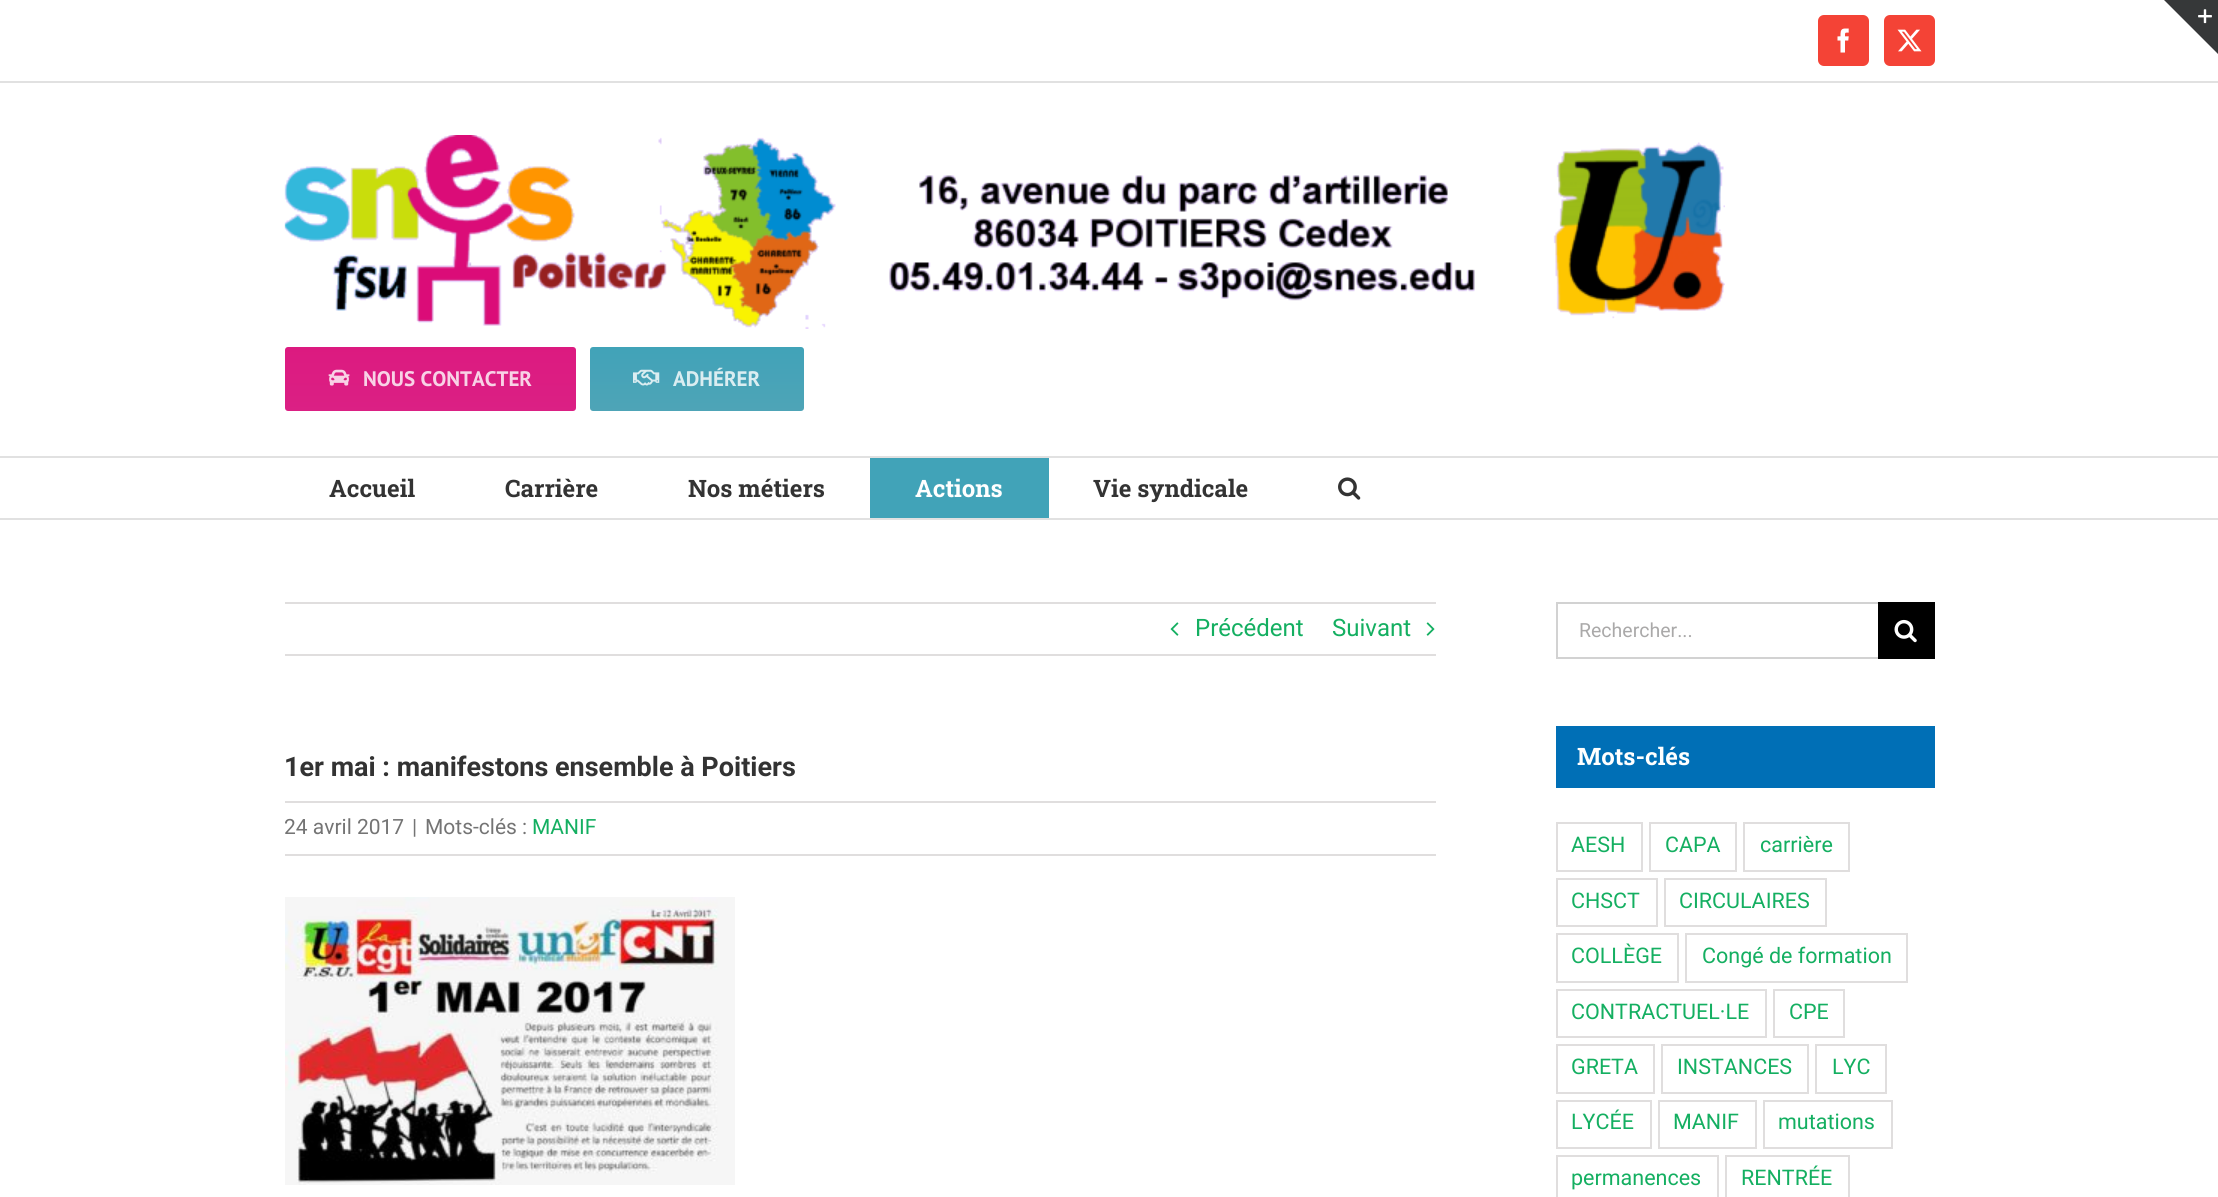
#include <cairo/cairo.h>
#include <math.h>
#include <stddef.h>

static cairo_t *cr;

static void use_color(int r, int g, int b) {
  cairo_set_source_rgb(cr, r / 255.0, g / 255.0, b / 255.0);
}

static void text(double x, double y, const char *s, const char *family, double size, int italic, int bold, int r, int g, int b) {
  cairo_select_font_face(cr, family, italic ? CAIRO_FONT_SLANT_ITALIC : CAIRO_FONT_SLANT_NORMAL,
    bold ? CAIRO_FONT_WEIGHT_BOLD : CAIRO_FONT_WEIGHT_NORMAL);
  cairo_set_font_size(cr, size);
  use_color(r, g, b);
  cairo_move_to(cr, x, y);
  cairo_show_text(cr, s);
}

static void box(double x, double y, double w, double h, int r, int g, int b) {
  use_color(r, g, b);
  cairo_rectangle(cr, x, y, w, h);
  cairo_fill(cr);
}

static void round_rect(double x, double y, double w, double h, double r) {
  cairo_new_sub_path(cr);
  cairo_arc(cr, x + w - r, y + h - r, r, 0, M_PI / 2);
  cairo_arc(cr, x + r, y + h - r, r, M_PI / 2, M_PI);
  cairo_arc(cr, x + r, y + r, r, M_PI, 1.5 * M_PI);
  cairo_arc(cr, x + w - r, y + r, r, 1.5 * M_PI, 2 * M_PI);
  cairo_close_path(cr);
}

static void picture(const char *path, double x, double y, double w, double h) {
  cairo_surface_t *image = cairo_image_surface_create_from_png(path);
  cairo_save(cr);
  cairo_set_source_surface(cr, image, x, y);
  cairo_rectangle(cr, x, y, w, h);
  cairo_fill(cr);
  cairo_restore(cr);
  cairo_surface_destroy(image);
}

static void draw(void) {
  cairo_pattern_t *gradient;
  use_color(255, 255, 255);
  cairo_paint(cr);
  use_color(54, 56, 57);
  cairo_new_path(cr);
  cairo_move_to(cr, 2164, 0);
  cairo_line_to(cr, 2218, 0);
  cairo_line_to(cr, 2218, 54);
  cairo_close_path(cr);
  cairo_fill(cr);
  picture("img_01.png", 2198, 9, 14, 15);
  box(0, 81, 2218, 2, 225, 225, 225);
  use_color(244, 67, 54);
  round_rect(1819, 16, 49, 49, 5);
  cairo_fill_preserve(cr);
  cairo_stroke(cr);
  picture("img_02.png", 1837, 28, 12, 25);
  round_rect(1885, 16, 49, 49, 5);
  cairo_fill_preserve(cr);
  cairo_stroke(cr);
  picture("img_03.png", 1897, 29, 25, 23);
  box(0, 456, 2218, 2, 225, 225, 225);
  picture("img_04.png", 284, 135, 1441, 194);
  gradient = cairo_pattern_create_linear(431, 347, 431, 411);
  cairo_pattern_add_color_stop_rgba(gradient, 0, 0.863, 0.102, 0.502, 1);
  cairo_pattern_add_color_stop_rgba(gradient, 1, 0.859, 0.125, 0.518, 1);
  cairo_set_source(cr, gradient);
  cairo_pattern_destroy(gradient);
  round_rect(285, 347, 291, 64, 3);
  cairo_fill(cr);
  picture("img_05.png", 328, 369, 22, 17);
  gradient = cairo_pattern_create_linear(697, 347, 697, 411);
  cairo_pattern_add_color_stop_rgba(gradient, 0, 0.255, 0.639, 0.722, 1);
  cairo_pattern_add_color_stop_rgba(gradient, 1, 0.306, 0.643, 0.718, 1);
  cairo_set_source(cr, gradient);
  cairo_pattern_destroy(gradient);
  round_rect(590, 347, 214, 64, 3);
  cairo_fill(cr);
  picture("img_06.png", 633, 369, 27, 17);
  box(0, 518, 2218, 2, 225, 225, 225);
  box(870, 458, 179, 60, 65, 163, 184);
  picture("img_07.png", 1338, 477, 23, 23);
  box(285, 602, 1151, 2, 224, 222, 222);
  box(285, 654, 1151, 2, 224, 222, 222);
  picture("img_08.png", 1170, 622, 9, 14);
  picture("img_09.png", 1426, 622, 9, 14);
  box(285, 801, 1151, 2, 224, 222, 222);
  box(285, 854, 1151, 2, 224, 222, 222);
  picture("img_10.png", 285, 897, 450, 288);
  box(1556, 602, 322, 2, 210, 210, 210);
  box(1556, 657, 322, 2, 210, 210, 210);
  box(1556, 602, 2, 57, 210, 210, 210);
  box(1878, 602, 57, 57, 0, 0, 0);
  picture("img_11.png", 1894, 619, 23, 24);
  box(1556, 726, 379, 62, 0, 111, 182);
  cairo_rectangle(cr, 1557, 823, 85, 48);
  use_color(224, 222, 222);
  cairo_stroke(cr);
  cairo_rectangle(cr, 1650, 823, 86, 48);
  cairo_stroke(cr);
  cairo_rectangle(cr, 1744, 823, 105, 48);
  cairo_stroke(cr);
  cairo_rectangle(cr, 1557, 879, 100, 47);
  cairo_stroke(cr);
  cairo_rectangle(cr, 1665, 879, 161, 47);
  cairo_stroke(cr);
  cairo_rectangle(cr, 1557, 934, 121, 48);
  cairo_stroke(cr);
  cairo_rectangle(cr, 1686, 934, 221, 48);
  cairo_stroke(cr);
  cairo_rectangle(cr, 1557, 990, 209, 47);
  cairo_stroke(cr);
  cairo_rectangle(cr, 1774, 990, 70, 47);
  cairo_stroke(cr);
  cairo_rectangle(cr, 1557, 1045, 97, 48);
  cairo_stroke(cr);
  cairo_rectangle(cr, 1662, 1045, 146, 48);
  cairo_stroke(cr);
  cairo_rectangle(cr, 1816, 1045, 70, 48);
  cairo_stroke(cr);
  cairo_rectangle(cr, 1557, 1101, 94, 47);
  cairo_stroke(cr);
  cairo_rectangle(cr, 1659, 1101, 97, 47);
  cairo_stroke(cr);
  cairo_rectangle(cr, 1764, 1101, 128, 47);
  cairo_stroke(cr);
  cairo_rectangle(cr, 1557, 1156, 161, 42);
  cairo_stroke(cr);
  cairo_rectangle(cr, 1726, 1156, 123, 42);
  cairo_stroke(cr);
  text(363, 386, "NOUS CONTACTER", "PT Sans", 21, 0, 1, 248, 210, 230);
  text(673, 386, "ADHÉRER", "PT Sans", 21, 0, 1, 218, 237, 241);
  text(329, 497, "Accueil", "Roboto Slab", 24, 0, 1, 51, 51, 51);
  text(505, 497, "Carrière", "Roboto Slab", 24, 0, 1, 51, 51, 51);
  text(688, 497, "Nos métiers", "Roboto Slab", 24, 0, 1, 51, 51, 51);
  text(915, 497, "Actions", "Roboto Slab", 24, 0, 1, 255, 255, 255);
  text(1093, 497, "Vie syndicale", "Roboto Slab", 24, 0, 1, 51, 51, 51);
  text(1195, 636, "Précédent", "Roboto", 24, 0, 0, 20, 175, 97);
  text(1332, 636, "Suivant", "Roboto", 24, 0, 0, 20, 175, 97);
  text(284, 776, "1er mai : manifestons ensemble à Poitiers", "Roboto", 27, 0, 1, 51, 51, 51);
  text(284, 834, "24 avril 2017", "Roboto", 21, 0, 0, 116, 116, 116);
  text(412, 834, "|", "Roboto", 21, 0, 0, 116, 116, 116);
  text(425, 834, "Mots-clés :", "Roboto", 21, 0, 0, 116, 116, 116);
  text(532, 834, "MANIF", "Roboto", 21, 0, 0, 20, 175, 97);
  text(1579, 637, "Rechercher...", "Roboto", 19.5, 0, 0, 170, 169, 169);
  text(1577, 765, "Mots-clés", "Roboto Slab", 24, 0, 1, 255, 255, 255);
  text(1571, 852, "AESH", "Roboto", 21.5, 0, 0, 20, 175, 97);
  text(1665, 852, "CAPA", "Roboto", 21.5, 0, 0, 20, 175, 97);
  text(1760, 852, "carrière", "Roboto", 21.5, 0, 0, 20, 175, 97);
  text(1571, 908, "CHSCT", "Roboto", 21.5, 0, 0, 20, 175, 97);
  text(1679, 908, "CIRCULAIRES", "Roboto", 21.5, 0, 0, 20, 175, 97);
  text(1571, 963, "COLLÈGE", "Roboto", 21.5, 0, 0, 20, 175, 97);
  text(1702, 963, "Congé de formation", "Roboto", 21.5, 0, 0, 20, 175, 97);
  text(1571, 1019, "CONTRACTUEL·LE", "Roboto", 21.5, 0, 0, 20, 175, 97);
  text(1789, 1019, "CPE", "Roboto", 21.5, 0, 0, 20, 175, 97);
  text(1571, 1074, "GRETA", "Roboto", 21.5, 0, 0, 20, 175, 97);
  text(1677, 1074, "INSTANCES", "Roboto", 21.5, 0, 0, 20, 175, 97);
  text(1832, 1074, "LYC", "Roboto", 21.5, 0, 0, 20, 175, 97);
  text(1571, 1129, "LYCÉE", "Roboto", 21.5, 0, 0, 20, 175, 97);
  text(1673, 1129, "MANIF", "Roboto", 21.5, 0, 0, 20, 175, 97);
  text(1778, 1129, "mutations", "Roboto", 21.5, 0, 0, 20, 175, 97);
  text(1571, 1185, "permanences", "Roboto", 21.5, 0, 0, 20, 175, 97);
  text(1741, 1185, "RENTRÉE", "Roboto", 21.5, 0, 0, 20, 175, 97);
}

int main(void) {
  cairo_surface_t *surface = cairo_image_surface_create(CAIRO_FORMAT_RGB24, 2218, 1197);
  cr = cairo_create(surface);
  cairo_font_options_t *options = cairo_font_options_create();
  cairo_font_options_set_hint_metrics(options, CAIRO_HINT_METRICS_OFF);
  cairo_font_options_set_hint_style(options, CAIRO_HINT_STYLE_NONE);
  cairo_set_font_options(cr, options);
  cairo_set_miter_limit(cr, 4);
  draw();
  cairo_surface_write_to_png(surface, "out.png");
  cairo_font_options_destroy(options);
  cairo_destroy(cr);
  cairo_surface_destroy(surface);
  return 0;
}
